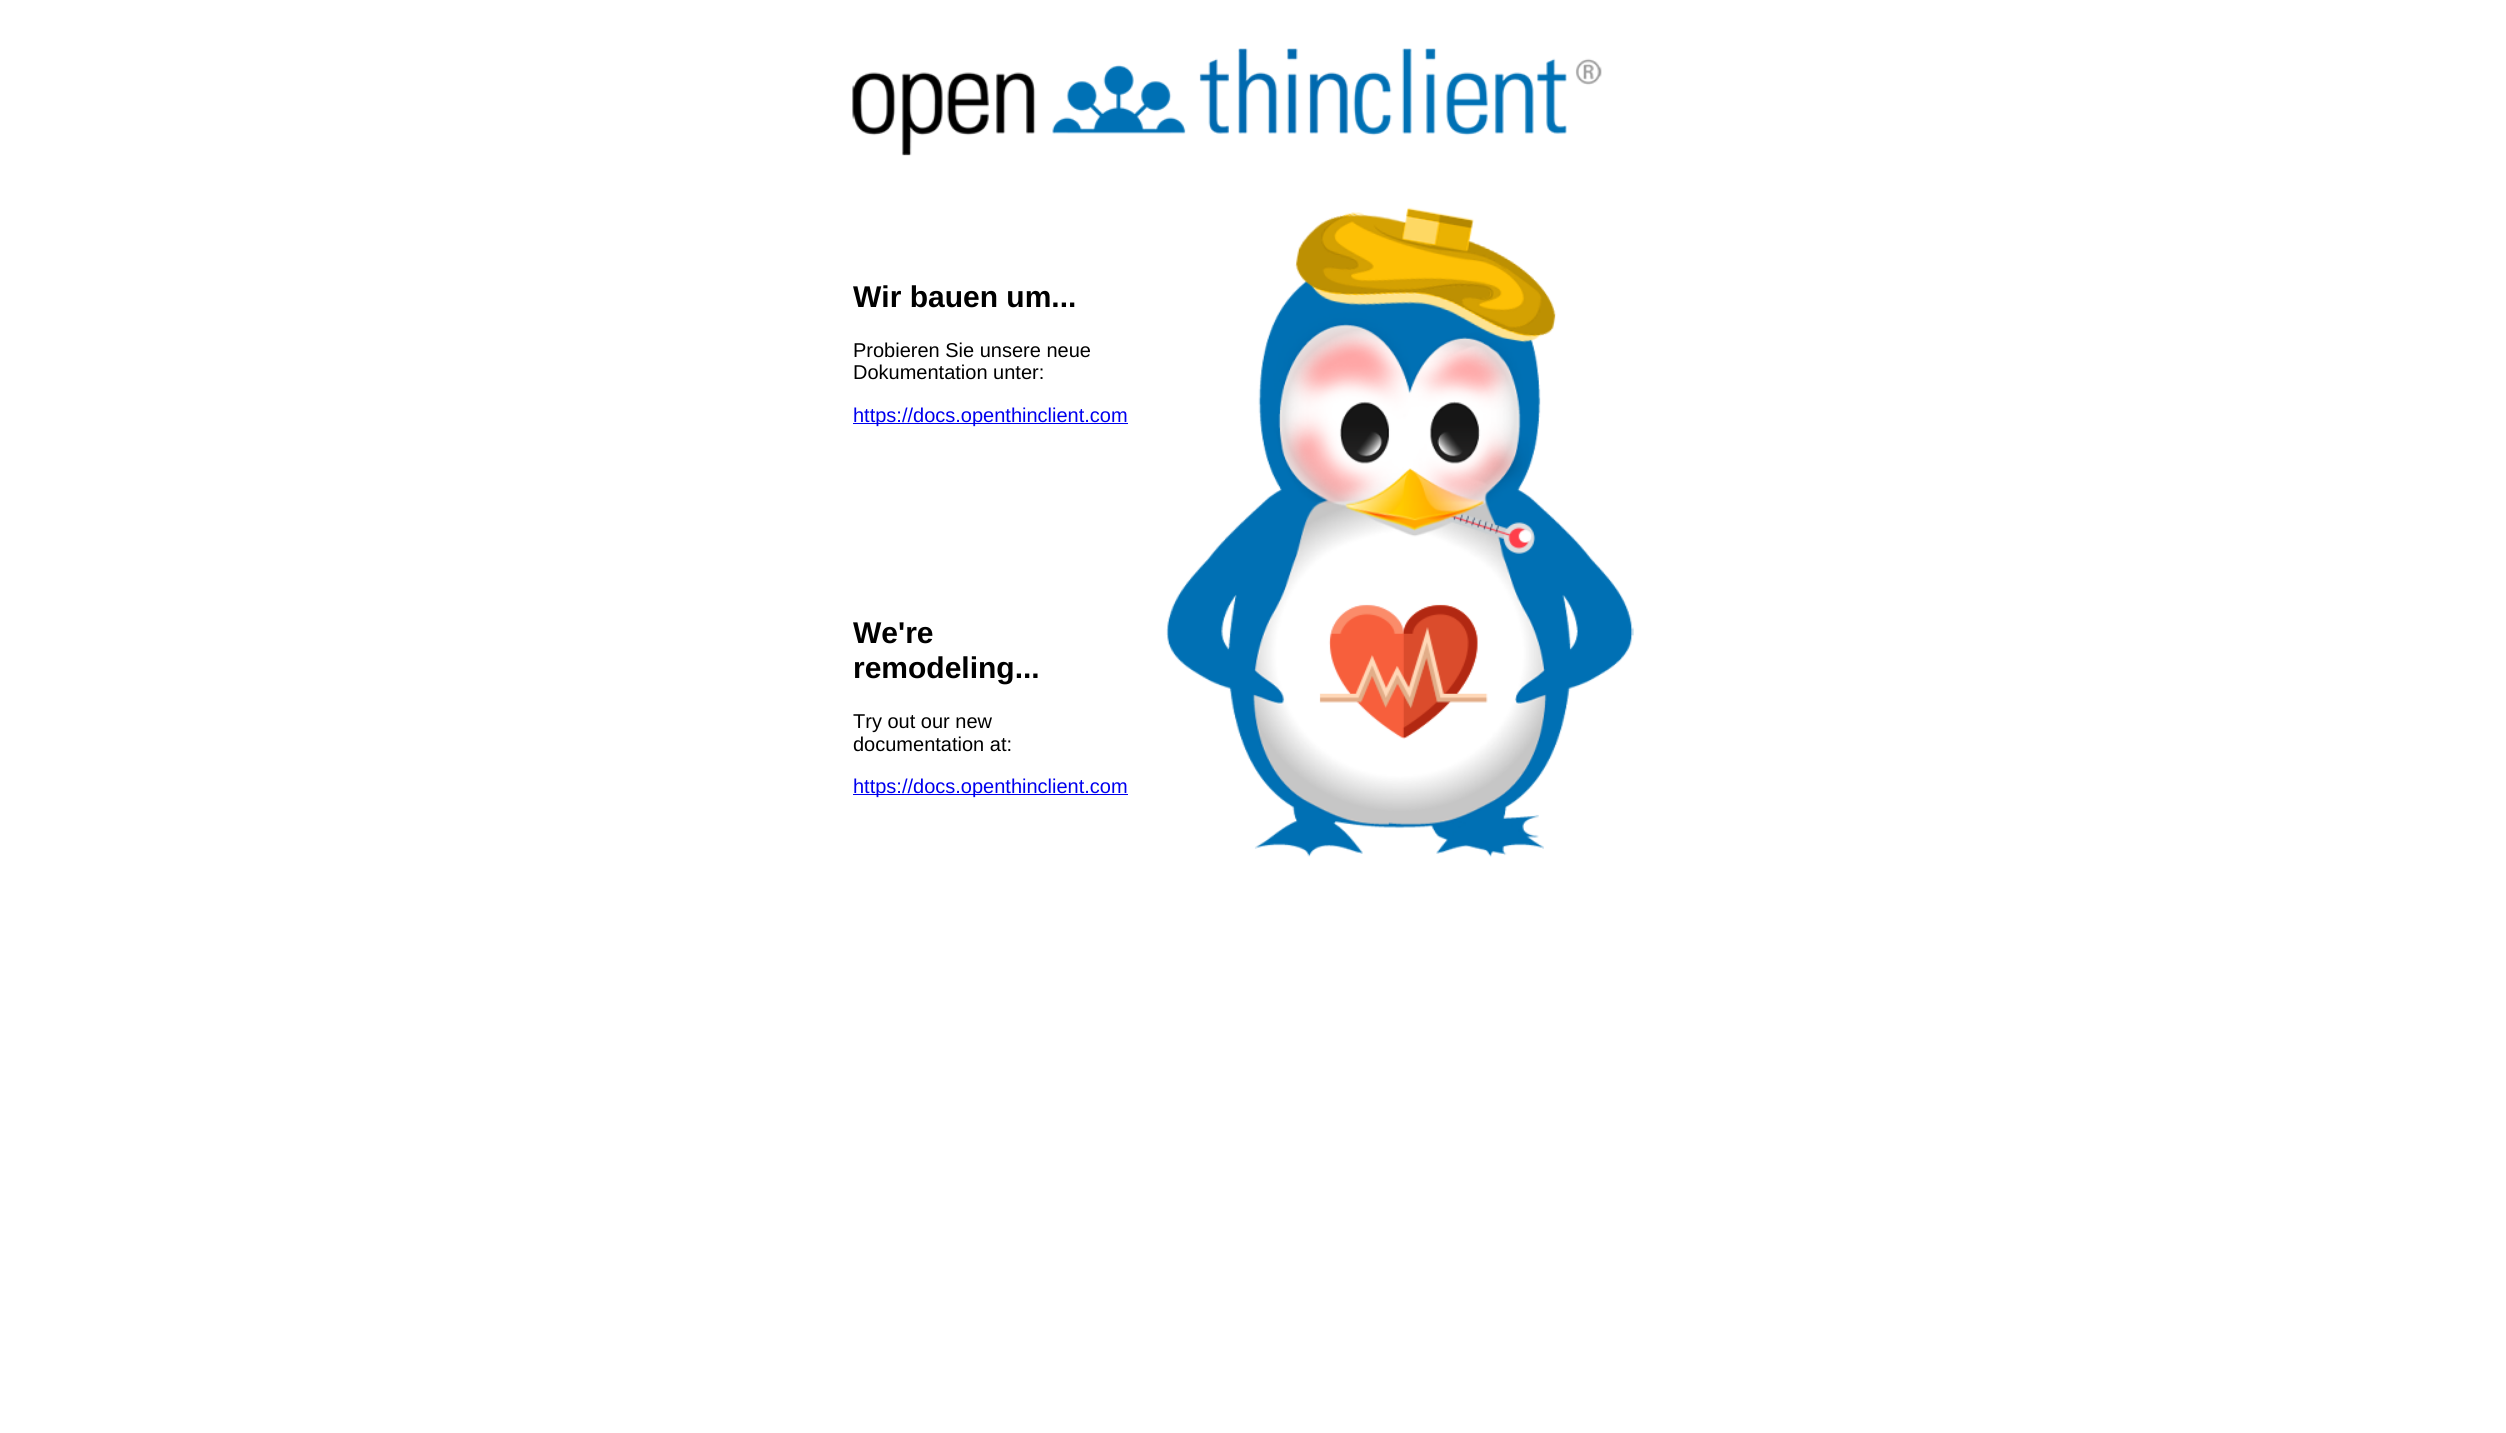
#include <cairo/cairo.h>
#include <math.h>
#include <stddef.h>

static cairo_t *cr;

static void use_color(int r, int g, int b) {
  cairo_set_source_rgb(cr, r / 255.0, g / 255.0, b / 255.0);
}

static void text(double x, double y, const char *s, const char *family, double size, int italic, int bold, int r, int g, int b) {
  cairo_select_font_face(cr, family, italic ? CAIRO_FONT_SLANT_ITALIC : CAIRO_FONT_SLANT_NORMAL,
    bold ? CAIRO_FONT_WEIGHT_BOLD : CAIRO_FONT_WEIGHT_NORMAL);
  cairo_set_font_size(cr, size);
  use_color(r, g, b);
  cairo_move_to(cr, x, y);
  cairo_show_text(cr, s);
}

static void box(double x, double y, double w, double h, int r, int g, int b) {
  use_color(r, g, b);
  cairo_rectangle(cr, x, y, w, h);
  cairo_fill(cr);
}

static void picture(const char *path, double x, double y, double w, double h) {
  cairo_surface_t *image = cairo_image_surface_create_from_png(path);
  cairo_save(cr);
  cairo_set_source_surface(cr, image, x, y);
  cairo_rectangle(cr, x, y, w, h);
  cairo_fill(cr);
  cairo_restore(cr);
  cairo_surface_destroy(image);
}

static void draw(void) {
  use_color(255, 255, 255);
  cairo_paint(cr);
  picture("img_01.png", 852, 48, 750, 108);
  box(853, 423, 275, 1, 0, 0, 238);
  picture("img_02.png", 1166, 207, 468, 650);
  box(853, 794, 275, 1, 0, 0, 238);
  text(853, 307, "Wir bauen um...", "Liberation Sans", 30, 0, 1, 0, 0, 0);
  text(853, 357, "Probieren Sie unsere neue", "Liberation Sans", 20, 0, 0, 0, 0, 0);
  text(853, 379, "Dokumentation unter:", "Liberation Sans", 20, 0, 0, 0, 0, 0);
  text(853, 422, "https://docs.openthinclient.com", "Liberation Sans", 20, 0, 0, 0, 0, 238);
  text(853, 643, "We're", "Liberation Sans", 30, 0, 1, 0, 0, 0);
  text(853, 678, "remodeling...", "Liberation Sans", 30, 0, 1, 0, 0, 0);
  text(853, 728, "Try out our new", "Liberation Sans", 20, 0, 0, 0, 0, 0);
  text(853, 751, "documentation at:", "Liberation Sans", 20, 0, 0, 0, 0, 0);
  text(853, 793, "https://docs.openthinclient.com", "Liberation Sans", 20, 0, 0, 0, 0, 238);
}

int main(void) {
  cairo_surface_t *surface = cairo_image_surface_create(CAIRO_FORMAT_RGB24, 2506, 1433);
  cr = cairo_create(surface);
  cairo_font_options_t *options = cairo_font_options_create();
  cairo_font_options_set_hint_metrics(options, CAIRO_HINT_METRICS_OFF);
  cairo_font_options_set_hint_style(options, CAIRO_HINT_STYLE_NONE);
  cairo_set_font_options(cr, options);
  cairo_set_miter_limit(cr, 4);
  draw();
  cairo_surface_write_to_png(surface, "out.png");
  cairo_font_options_destroy(options);
  cairo_destroy(cr);
  cairo_surface_destroy(surface);
  return 0;
}
